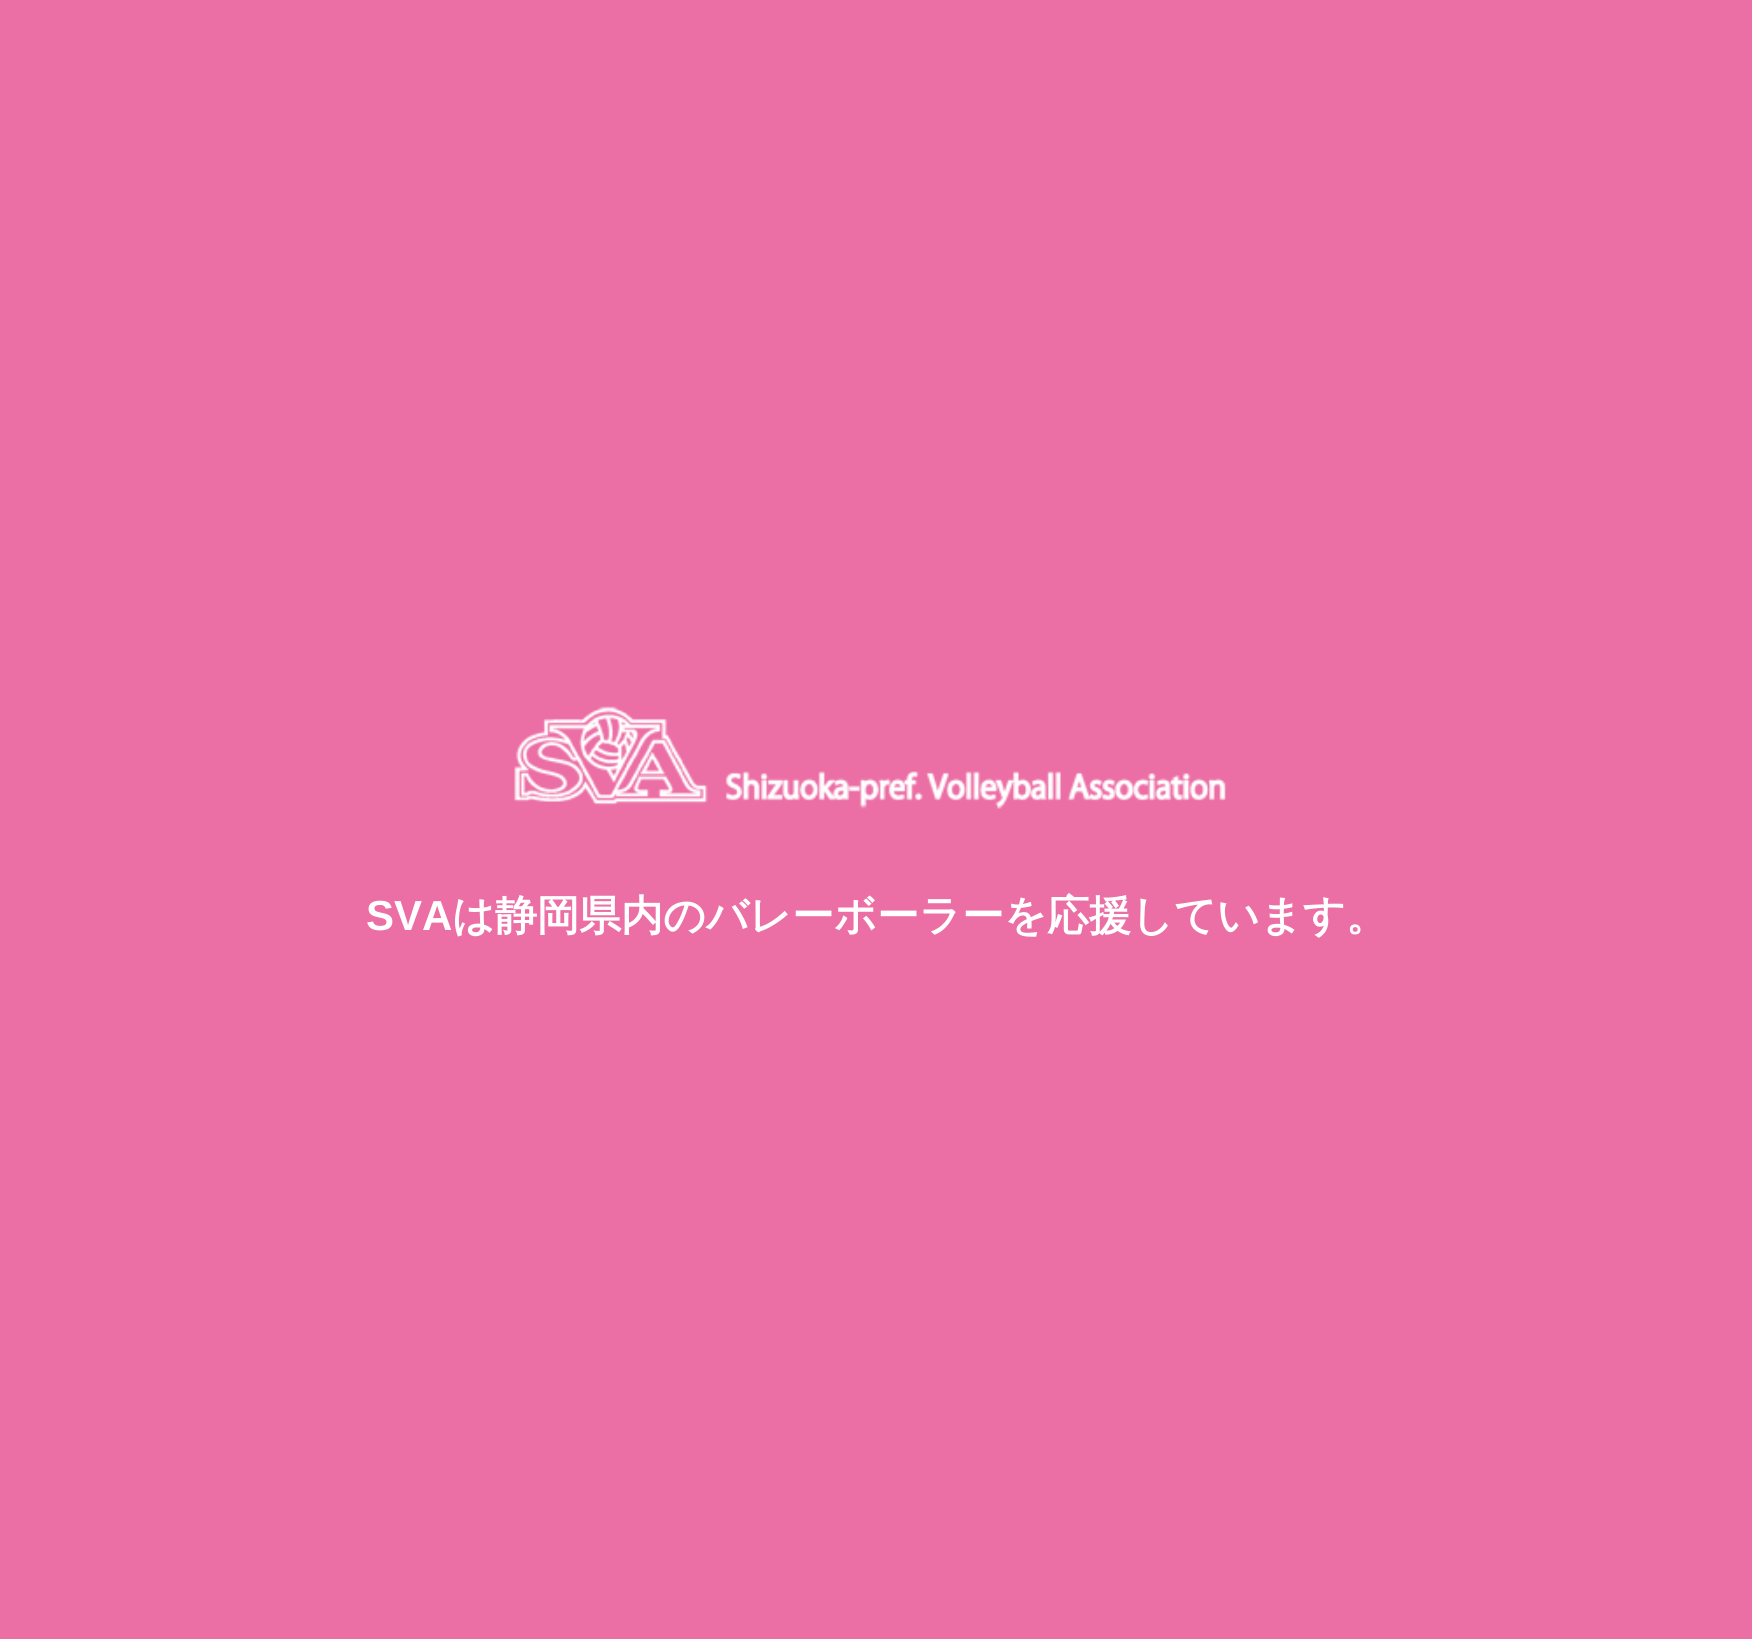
#include <cairo/cairo.h>
#include <math.h>
#include <stddef.h>

static cairo_t *cr;

static void use_color(int r, int g, int b) {
  cairo_set_source_rgb(cr, r / 255.0, g / 255.0, b / 255.0);
}

static void text(double x, double y, const char *s, const char *family, double size, int italic, int bold, int r, int g, int b) {
  cairo_select_font_face(cr, family, italic ? CAIRO_FONT_SLANT_ITALIC : CAIRO_FONT_SLANT_NORMAL,
    bold ? CAIRO_FONT_WEIGHT_BOLD : CAIRO_FONT_WEIGHT_NORMAL);
  cairo_set_font_size(cr, size);
  use_color(r, g, b);
  cairo_move_to(cr, x, y);
  cairo_show_text(cr, s);
}

static void picture(const char *path, double x, double y, double w, double h) {
  cairo_surface_t *image = cairo_image_surface_create_from_png(path);
  cairo_save(cr);
  cairo_set_source_surface(cr, image, x, y);
  cairo_rectangle(cr, x, y, w, h);
  cairo_fill(cr);
  cairo_restore(cr);
  cairo_surface_destroy(image);
}

static void draw(void) {
  use_color(235, 110, 165);
  cairo_paint(cr);
  picture("img_01.png", 514, 706, 712, 103);
  text(366, 930, "SVA", "Liberation Sans", 42, 0, 1, 255, 255, 255);
  text(452, 930, "は静岡県内のバレーボーラーを応援しています。", "WenQuanYi Zen Hei", 42, 0, 1, 255, 255, 255);
}

int main(void) {
  cairo_surface_t *surface = cairo_image_surface_create(CAIRO_FORMAT_RGB24, 1752, 1639);
  cr = cairo_create(surface);
  cairo_font_options_t *options = cairo_font_options_create();
  cairo_font_options_set_hint_metrics(options, CAIRO_HINT_METRICS_OFF);
  cairo_font_options_set_hint_style(options, CAIRO_HINT_STYLE_NONE);
  cairo_set_font_options(cr, options);
  cairo_set_miter_limit(cr, 4);
  draw();
  cairo_surface_write_to_png(surface, "out.png");
  cairo_font_options_destroy(options);
  cairo_destroy(cr);
  cairo_surface_destroy(surface);
  return 0;
}
